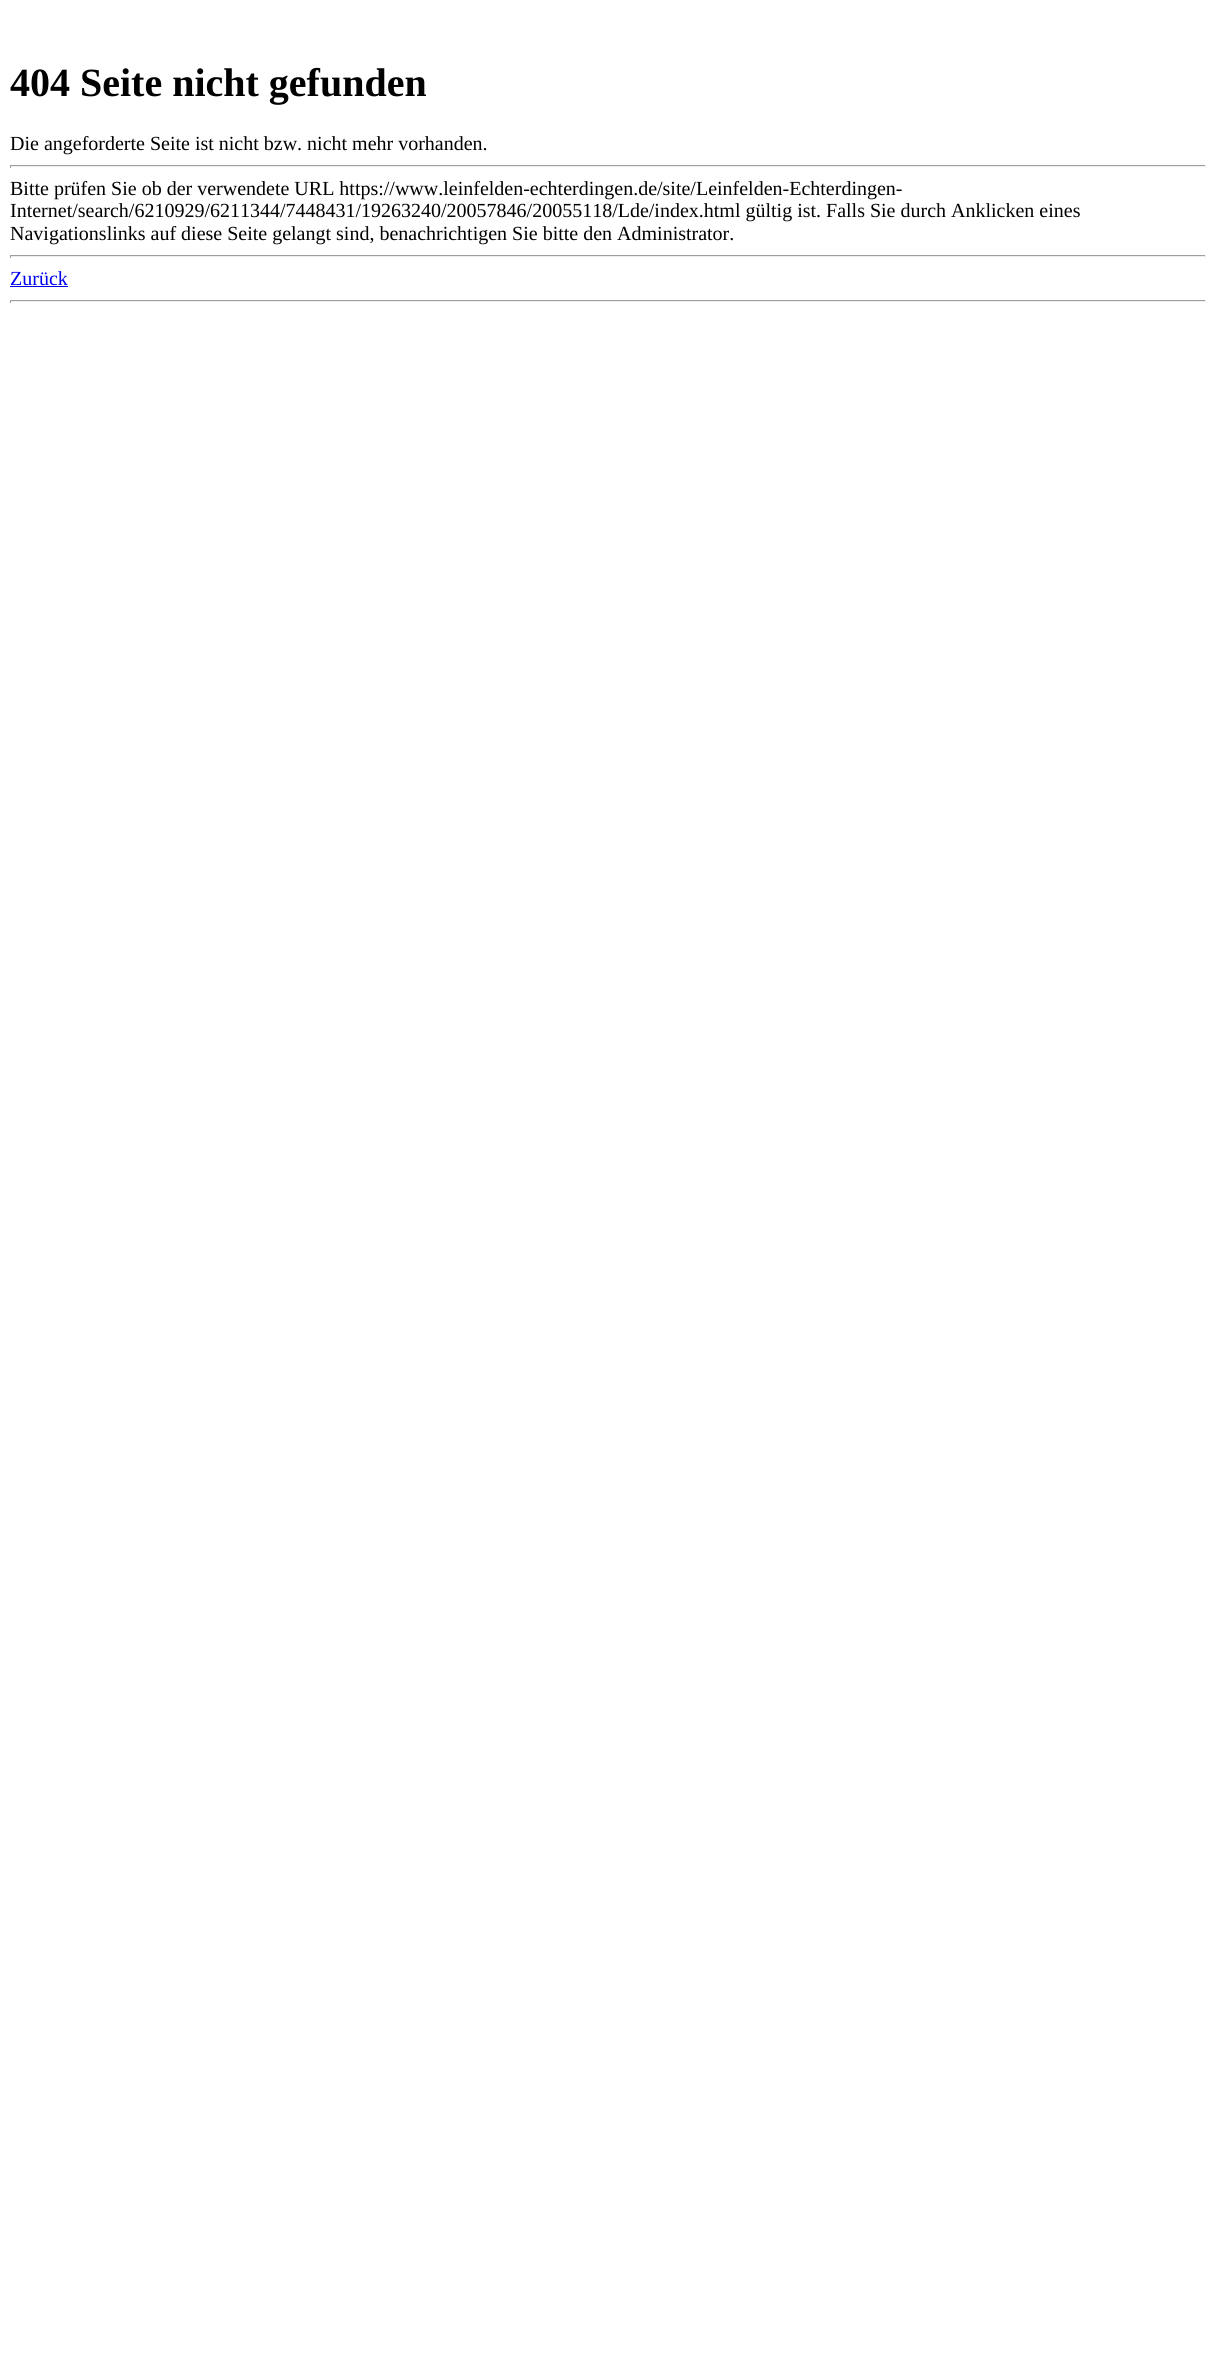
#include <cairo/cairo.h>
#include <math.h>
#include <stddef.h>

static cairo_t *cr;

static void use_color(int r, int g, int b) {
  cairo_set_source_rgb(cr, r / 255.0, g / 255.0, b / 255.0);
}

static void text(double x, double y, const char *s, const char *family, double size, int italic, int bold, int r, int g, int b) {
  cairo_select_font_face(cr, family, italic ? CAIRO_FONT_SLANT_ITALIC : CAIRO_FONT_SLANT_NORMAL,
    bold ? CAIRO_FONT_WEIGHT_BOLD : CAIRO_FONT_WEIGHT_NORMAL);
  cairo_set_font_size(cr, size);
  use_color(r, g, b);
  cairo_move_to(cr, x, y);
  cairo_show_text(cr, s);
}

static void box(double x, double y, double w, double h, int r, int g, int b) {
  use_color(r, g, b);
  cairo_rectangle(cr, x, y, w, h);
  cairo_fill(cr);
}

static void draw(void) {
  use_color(255, 255, 255);
  cairo_paint(cr);
  box(10, 165, 1196, 1, 159, 159, 159);
  box(1205, 165, 1, 3, 238, 238, 238);
  box(10, 166, 1196, 1, 238, 238, 238);
  box(10, 165, 1, 3, 159, 159, 159);
  box(10, 255, 1196, 1, 159, 159, 159);
  box(1205, 255, 1, 3, 238, 238, 238);
  box(10, 256, 1196, 1, 238, 238, 238);
  box(10, 255, 1, 3, 159, 159, 159);
  box(10, 286, 58, 1, 0, 0, 238);
  box(10, 300, 1196, 1, 159, 159, 159);
  box(1205, 300, 1, 3, 238, 238, 238);
  box(10, 301, 1196, 1, 238, 238, 238);
  box(10, 300, 1, 3, 159, 159, 159);
  text(10, 96, "404 Seite nicht gefunden", "Liberation Serif", 40, 0, 1, 0, 0, 0);
  text(10, 150, "Die angeforderte Seite ist nicht bzw. nicht mehr vorhanden.", "Liberation Serif", 20, 0, 0, 0, 0, 0);
  text(10, 195, "Bitte prüfen Sie ob der verwendete URL https://www.leinfelden-echterdingen.de/site/Leinfelden-Echterdingen-", "Liberation Serif", 20, 0, 0, 0, 0, 0);
  text(10, 217, "Internet/search/6210929/6211344/7448431/19263240/20057846/20055118/Lde/index.html gültig ist. Falls Sie durch Anklicken eines", "Liberation Serif", 20, 0, 0, 0, 0, 0);
  text(10, 240, "Navigationslinks auf diese Seite gelangt sind, benachrichtigen Sie bitte den Administrator.", "Liberation Serif", 20, 0, 0, 0, 0, 0);
  text(10, 285, "Zurück", "Liberation Serif", 20, 0, 0, 0, 0, 238);
}

int main(void) {
  cairo_surface_t *surface = cairo_image_surface_create(CAIRO_FORMAT_RGB24, 1216, 2353);
  cr = cairo_create(surface);
  cairo_font_options_t *options = cairo_font_options_create();
  cairo_font_options_set_hint_metrics(options, CAIRO_HINT_METRICS_OFF);
  cairo_font_options_set_hint_style(options, CAIRO_HINT_STYLE_NONE);
  cairo_set_font_options(cr, options);
  cairo_set_miter_limit(cr, 4);
  draw();
  cairo_surface_write_to_png(surface, "out.png");
  cairo_font_options_destroy(options);
  cairo_destroy(cr);
  cairo_surface_destroy(surface);
  return 0;
}
